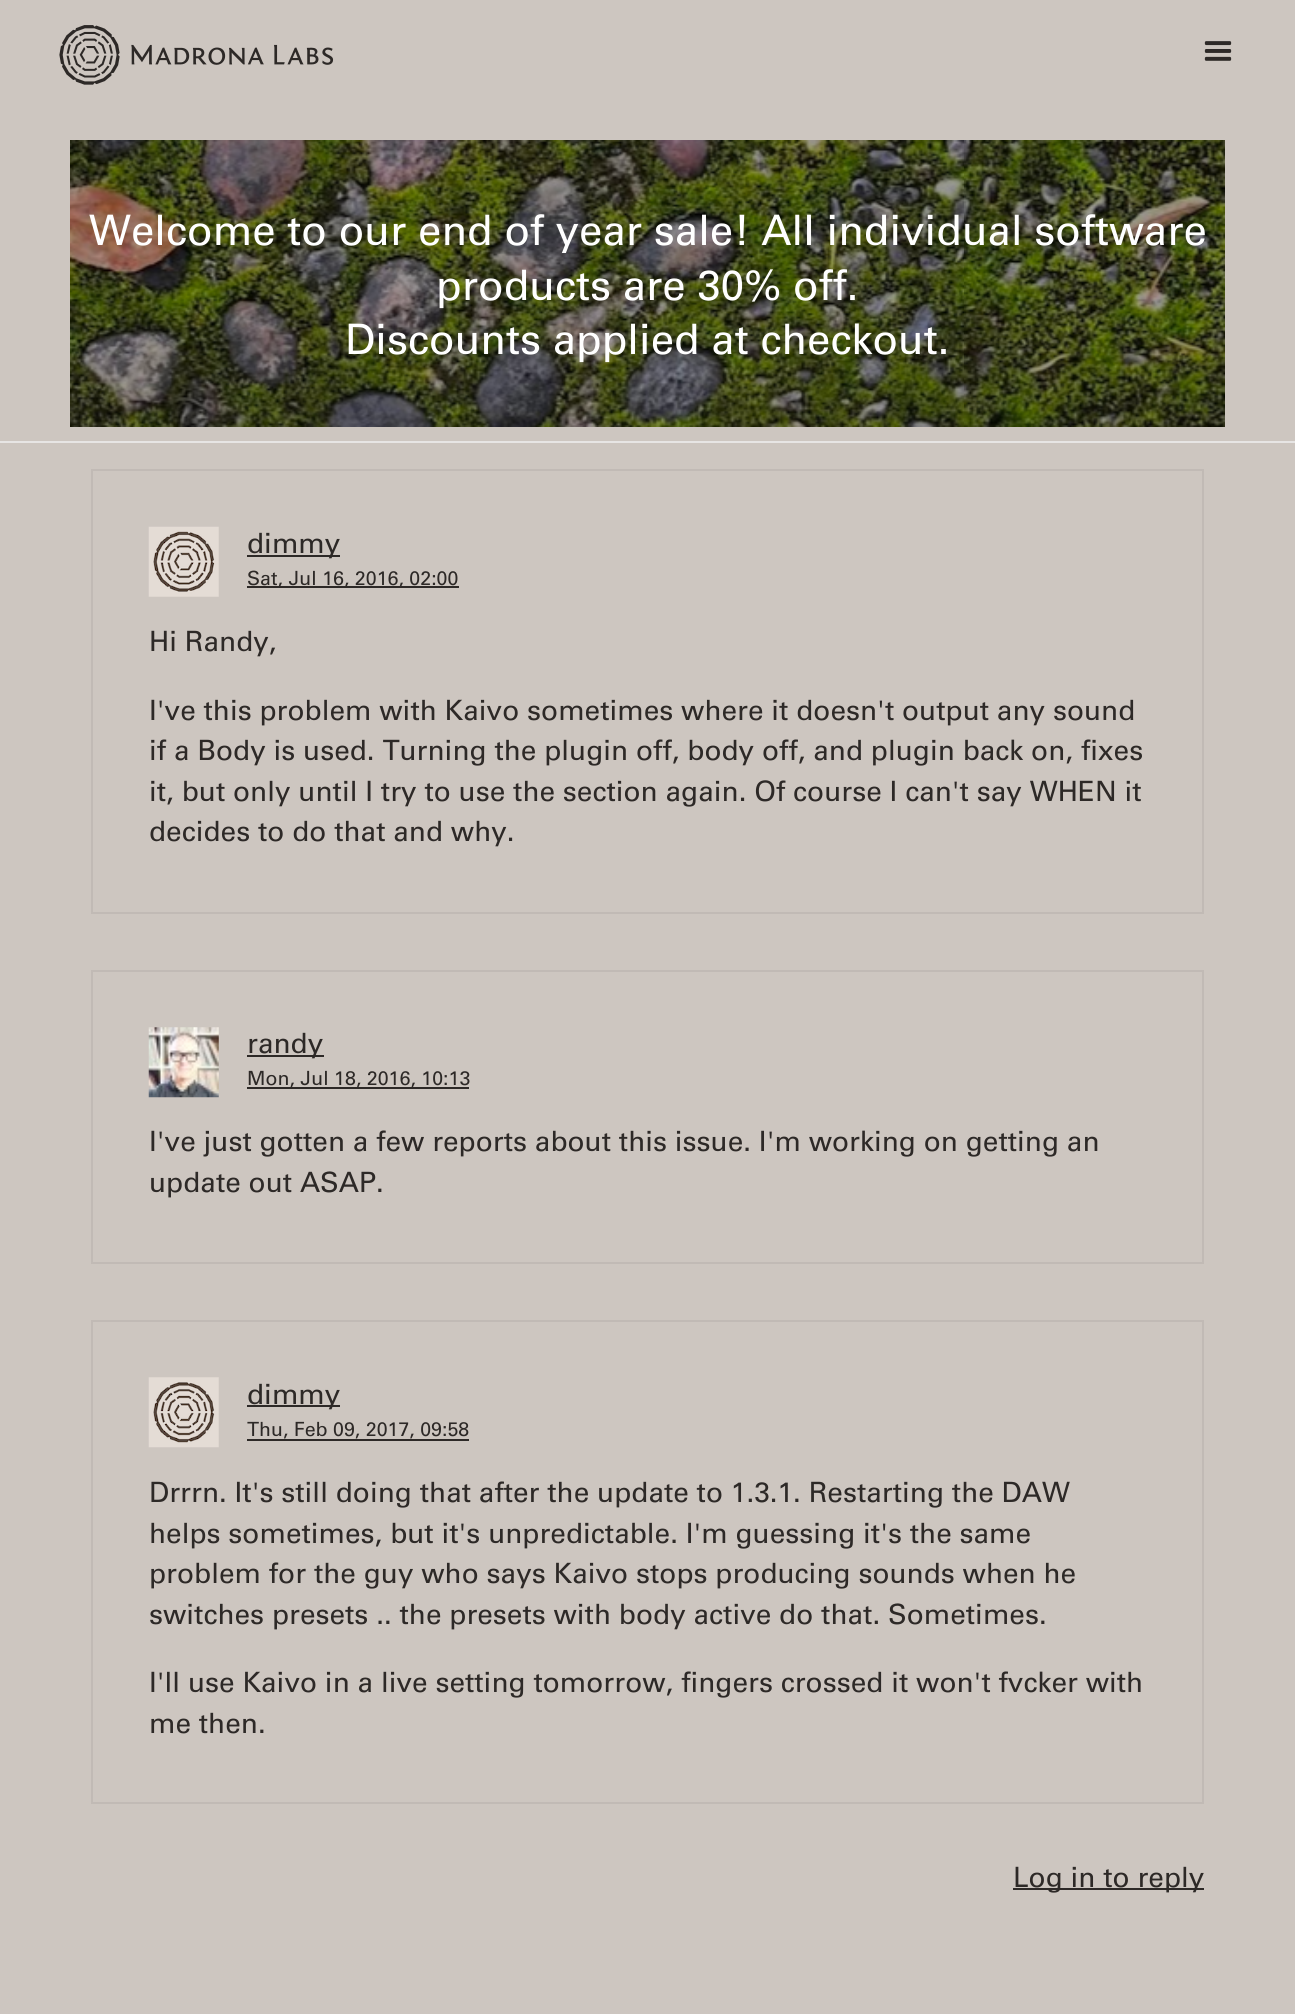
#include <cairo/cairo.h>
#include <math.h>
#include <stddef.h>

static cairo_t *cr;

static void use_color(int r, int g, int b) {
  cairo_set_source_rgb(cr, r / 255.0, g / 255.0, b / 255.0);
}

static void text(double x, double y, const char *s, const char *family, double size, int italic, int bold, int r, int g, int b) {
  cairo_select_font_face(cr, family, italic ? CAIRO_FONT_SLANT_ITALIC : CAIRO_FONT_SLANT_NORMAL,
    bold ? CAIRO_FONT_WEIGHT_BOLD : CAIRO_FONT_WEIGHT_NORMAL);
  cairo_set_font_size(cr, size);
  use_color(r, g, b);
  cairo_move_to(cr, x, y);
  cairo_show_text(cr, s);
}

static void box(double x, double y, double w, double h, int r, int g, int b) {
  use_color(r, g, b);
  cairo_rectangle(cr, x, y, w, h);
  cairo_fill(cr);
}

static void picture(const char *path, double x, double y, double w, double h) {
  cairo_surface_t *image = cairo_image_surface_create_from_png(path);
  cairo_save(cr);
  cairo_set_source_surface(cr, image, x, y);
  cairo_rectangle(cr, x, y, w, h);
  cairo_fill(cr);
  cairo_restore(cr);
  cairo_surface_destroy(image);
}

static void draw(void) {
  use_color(205, 198, 192);
  cairo_paint(cr);
  box(0, 441, 1295, 2, 231, 229, 228);
  picture("img_01.png", 59, 25, 275, 60);
  picture("img_02.png", 1204, 41, 28, 20);
  picture("img_03.png", 70, 140, 1155, 287);
  cairo_rectangle(cr, 92, 470, 1111, 443);
  use_color(193, 186, 181);
  cairo_stroke(cr);
  picture("img_04.png", 148, 526, 71, 71);
  box(247, 555, 93, 2, 45, 41, 39);
  box(247, 586, 212, 2, 45, 41, 39);
  cairo_rectangle(cr, 92, 971, 1111, 292);
  use_color(193, 186, 181);
  cairo_stroke(cr);
  picture("img_05.png", 148, 1027, 71, 71);
  box(247, 1055, 77, 2, 45, 41, 39);
  box(247, 1087, 222, 2, 45, 41, 39);
  cairo_rectangle(cr, 92, 1321, 1111, 482);
  use_color(193, 186, 181);
  cairo_stroke(cr);
  picture("img_06.png", 148, 1377, 71, 71);
  box(247, 1405, 93, 2, 45, 41, 39);
  box(247, 1439, 222, 2, 45, 41, 39);
  box(1013, 1888, 191, 2, 45, 41, 39);
  text(89, 245, "Welcome to our end of year sale! All individual software", "Univers", 42, 0, 0, 255, 255, 255);
  text(436, 300, "products are 30% off.", "Univers", 42, 0, 0, 255, 255, 255);
  text(345, 354, "Discounts applied at checkout.", "Univers", 42, 0, 0, 255, 255, 255);
  text(247, 553, "dimmy", "Univers", 28, 0, 0, 45, 41, 39);
  text(247, 585, "Sat, Jul 16, 2016, 02:00", "Univers", 19.6, 0, 0, 45, 41, 39);
  text(149, 651, "Hi Randy,", "Univers", 28, 0, 0, 45, 41, 39);
  text(149, 720, "I've this problem with Kaivo sometimes where it doesn't output any sound", "Univers", 28, 0, 0, 45, 41, 39);
  text(149, 760, "if a Body is used. Turning the plugin off, body off, and plugin back on, fixes", "Univers", 28, 0, 0, 45, 41, 39);
  text(149, 801, "it, but only until I try to use the section again. Of course I can't say WHEN it", "Univers", 28, 0, 0, 45, 41, 39);
  text(149, 841, "decides to do that and why.", "Univers", 28, 0, 0, 45, 41, 39);
  text(247, 1053, "randy", "Univers", 28, 0, 0, 45, 41, 39);
  text(247, 1085, "Mon, Jul 18, 2016, 10:13", "Univers", 19.6, 0, 0, 45, 41, 39);
  text(149, 1151, "I've just gotten a few reports about this issue. I'm working on getting an", "Univers", 28, 0, 0, 45, 41, 39);
  text(149, 1192, "update out ASAP.", "Univers", 28, 0, 0, 45, 41, 39);
  text(247, 1404, "dimmy", "Univers", 28, 0, 0, 45, 41, 39);
  text(247, 1436, "Thu, Feb 09, 2017, 09:58", "Univers", 19.6, 0, 0, 45, 41, 39);
  text(149, 1502, "Drrrn. It's still doing that after the update to 1.3.1. Restarting the DAW", "Univers", 28, 0, 0, 45, 41, 39);
  text(149, 1543, "helps sometimes, but it's unpredictable. I'm guessing it's the same", "Univers", 28, 0, 0, 45, 41, 39);
  text(149, 1583, "problem for the guy who says Kaivo stops producing sounds when he", "Univers", 28, 0, 0, 45, 41, 39);
  text(149, 1624, "switches presets .. the presets with body active do that. Sometimes.", "Univers", 28, 0, 0, 45, 41, 39);
  text(149, 1692, "I'll use Kaivo in a live setting tomorrow, fingers crossed it won't fvcker with", "Univers", 28, 0, 0, 45, 41, 39);
  text(149, 1733, "me then.", "Univers", 28, 0, 0, 45, 41, 39);
  text(1013, 1887, "Log in to reply", "Univers", 28, 0, 0, 45, 41, 39);
}

int main(void) {
  cairo_surface_t *surface = cairo_image_surface_create(CAIRO_FORMAT_RGB24, 1295, 2014);
  cr = cairo_create(surface);
  cairo_font_options_t *options = cairo_font_options_create();
  cairo_font_options_set_hint_metrics(options, CAIRO_HINT_METRICS_OFF);
  cairo_font_options_set_hint_style(options, CAIRO_HINT_STYLE_NONE);
  cairo_set_font_options(cr, options);
  cairo_set_miter_limit(cr, 4);
  draw();
  cairo_surface_write_to_png(surface, "out.png");
  cairo_font_options_destroy(options);
  cairo_destroy(cr);
  cairo_surface_destroy(surface);
  return 0;
}
